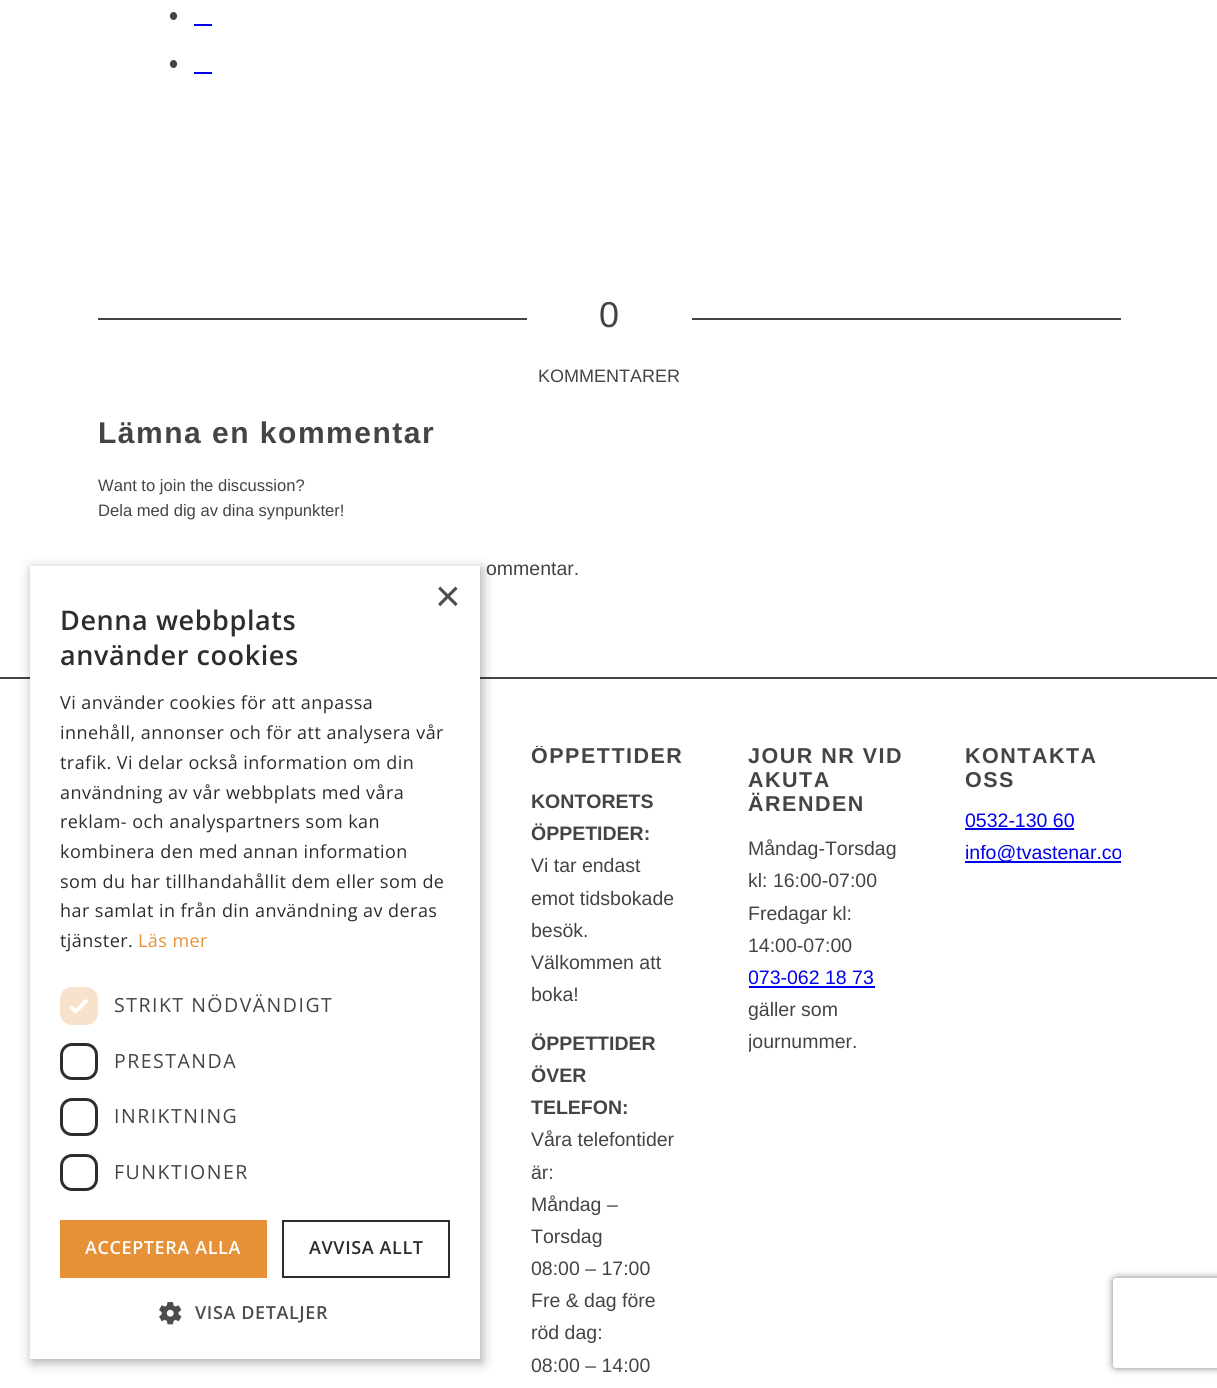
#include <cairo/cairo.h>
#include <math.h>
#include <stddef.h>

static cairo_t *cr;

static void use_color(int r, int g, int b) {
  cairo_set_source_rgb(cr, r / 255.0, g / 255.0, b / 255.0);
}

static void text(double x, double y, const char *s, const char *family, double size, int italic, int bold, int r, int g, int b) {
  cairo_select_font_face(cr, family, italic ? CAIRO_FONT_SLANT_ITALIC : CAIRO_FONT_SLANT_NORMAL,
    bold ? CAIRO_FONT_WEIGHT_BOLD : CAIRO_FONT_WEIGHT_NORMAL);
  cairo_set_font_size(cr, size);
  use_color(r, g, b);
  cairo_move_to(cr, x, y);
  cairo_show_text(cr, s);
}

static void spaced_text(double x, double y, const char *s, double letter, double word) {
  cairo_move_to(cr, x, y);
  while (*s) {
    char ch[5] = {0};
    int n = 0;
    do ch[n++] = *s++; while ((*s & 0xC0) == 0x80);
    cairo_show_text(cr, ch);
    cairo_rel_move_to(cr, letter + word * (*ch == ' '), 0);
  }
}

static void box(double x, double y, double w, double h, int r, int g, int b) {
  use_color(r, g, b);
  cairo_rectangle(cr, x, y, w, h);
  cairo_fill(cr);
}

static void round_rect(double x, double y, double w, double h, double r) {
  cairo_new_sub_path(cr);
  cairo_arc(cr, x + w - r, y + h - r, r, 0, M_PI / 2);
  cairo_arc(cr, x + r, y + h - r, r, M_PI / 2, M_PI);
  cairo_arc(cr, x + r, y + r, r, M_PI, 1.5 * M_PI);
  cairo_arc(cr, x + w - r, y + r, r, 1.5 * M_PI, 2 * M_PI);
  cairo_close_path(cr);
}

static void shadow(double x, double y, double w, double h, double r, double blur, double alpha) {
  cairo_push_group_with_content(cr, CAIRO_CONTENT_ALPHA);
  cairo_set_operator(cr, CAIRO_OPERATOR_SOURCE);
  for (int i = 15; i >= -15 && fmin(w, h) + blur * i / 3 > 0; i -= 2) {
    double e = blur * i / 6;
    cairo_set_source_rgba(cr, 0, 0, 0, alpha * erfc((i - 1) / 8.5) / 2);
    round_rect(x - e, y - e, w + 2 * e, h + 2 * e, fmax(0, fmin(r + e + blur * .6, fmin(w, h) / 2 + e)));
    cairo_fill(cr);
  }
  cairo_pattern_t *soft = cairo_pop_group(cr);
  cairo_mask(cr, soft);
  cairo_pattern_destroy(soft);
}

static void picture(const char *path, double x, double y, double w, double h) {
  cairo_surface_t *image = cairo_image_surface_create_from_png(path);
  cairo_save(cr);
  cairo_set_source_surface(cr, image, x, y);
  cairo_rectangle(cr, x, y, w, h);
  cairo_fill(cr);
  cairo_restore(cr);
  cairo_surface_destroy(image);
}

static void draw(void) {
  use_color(255, 255, 255);
  cairo_paint(cr);
  use_color(68, 68, 68);
  round_rect(170, 12, 7, 8, 3.5);
  cairo_fill(cr);
  box(194, 24, 18, 2, 0, 0, 238);
  use_color(68, 68, 68);
  round_rect(170, 60, 7, 8, 3.5);
  cairo_fill(cr);
  box(194, 72, 18, 2, 0, 0, 238);
  box(98, 318, 429, 2, 68, 68, 68);
  box(692, 318, 429, 2, 68, 68, 68);
  box(0, 677, 1217, 2, 68, 68, 68);
  box(749, 986, 126, 2, 0, 0, 238);
  box(965, 828, 109, 2, 0, 0, 238);
  box(965, 861, 156, 2, 0, 0, 238);
  use_color(0, 0, 0);
  shadow(32, 569, 450, 793, 0, 6, 0.35);
  box(30, 566, 450, 793, 255, 255, 255);
  use_color(249, 226, 203);
  round_rect(60, 987, 38, 38, 12);
  cairo_fill(cr);
  cairo_new_path(cr);
  cairo_move_to(cr, 70.5, 1006.5);
  cairo_line_to(cr, 75.5, 1011.5);
  cairo_line_to(cr, 87, 1000);
  use_color(255, 255, 255);
  cairo_set_line_width(cr, 3.9);
  cairo_stroke(cr);
  round_rect(61.5, 1044.5, 35, 34, 10.5);
  use_color(45, 45, 45);
  cairo_set_line_width(cr, 3);
  cairo_stroke(cr);
  round_rect(61.5, 1099.5, 35, 35, 10.5);
  cairo_stroke(cr);
  round_rect(61.5, 1155.5, 35, 34, 10.5);
  cairo_stroke(cr);
  box(60, 1220, 207, 58, 230, 145, 56);
  cairo_rectangle(cr, 283, 1221, 166, 56);
  use_color(45, 45, 45);
  cairo_set_line_width(cr, 2);
  cairo_stroke(cr);
  picture("img_01.png", 159, 1302, 23, 23);
  cairo_save(cr);
  cairo_set_fill_rule(cr, CAIRO_FILL_RULE_EVEN_ODD);
  cairo_new_path(cr);
  cairo_move_to(cr, 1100, 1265);
  cairo_line_to(cr, 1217, 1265);
  cairo_line_to(cr, 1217, 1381);
  cairo_line_to(cr, 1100, 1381);
  cairo_close_path(cr);
  cairo_move_to(cr, 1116, 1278);
  cairo_line_to(cr, 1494, 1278);
  cairo_curve_to(cr, 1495.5, 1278, 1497, 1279.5, 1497, 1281);
  cairo_line_to(cr, 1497, 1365);
  cairo_curve_to(cr, 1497, 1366.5, 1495.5, 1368, 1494, 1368);
  cairo_line_to(cr, 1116, 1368);
  cairo_curve_to(cr, 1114.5, 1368, 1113, 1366.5, 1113, 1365);
  cairo_line_to(cr, 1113, 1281);
  cairo_curve_to(cr, 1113, 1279.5, 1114.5, 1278, 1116, 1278);
  cairo_close_path(cr);
  cairo_clip(cr);
  use_color(128, 128, 128);
  shadow(1113, 1278, 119, 90, 3, 4, 1);
  cairo_restore(cr);
  text(599, 327, "0", "Liberation Sans", 36, 0, 0, 68, 68, 68);
  text(538, 382, "KOMMENTARER", "Liberation Sans", 18, 0, 0, 68, 68, 68);
  cairo_select_font_face(cr, "Liberation Sans", CAIRO_FONT_SLANT_NORMAL, CAIRO_FONT_WEIGHT_BOLD);
  cairo_set_font_size(cr, 30);
  spaced_text(98, 443, "Lämna en kommentar", 1.5, 0);
  text(98, 491, "Want to join the discussion?", "Liberation Sans", 16.6, 0, 0, 68, 68, 68);
  text(98, 516, "Dela med dig av dina synpunkter!", "Liberation Sans", 16.6, 0, 0, 68, 68, 68);
  text(486, 575, "ommentar.", "Liberation Sans", 19.5, 0, 0, 68, 68, 68);
  cairo_save(cr);
  cairo_rectangle(cr, 531, 746, 156, 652);
  cairo_clip(cr);
  cairo_select_font_face(cr, "Liberation Sans", CAIRO_FONT_SLANT_NORMAL, CAIRO_FONT_WEIGHT_BOLD);
  cairo_set_font_size(cr, 21.5);
  spaced_text(531, 763, "ÖPPETTIDER", 1.5, 0);
  cairo_restore(cr);
  text(531, 808, "KONTORETS", "Liberation Sans", 19.5, 0, 1, 68, 68, 68);
  text(531, 840, "ÖPPETIDER:", "Liberation Sans", 19.5, 0, 1, 68, 68, 68);
  text(531, 872, "Vi tar endast", "Liberation Sans", 19.5, 0, 0, 68, 68, 68);
  text(531, 905, "emot tidsbokade", "Liberation Sans", 19.5, 0, 0, 68, 68, 68);
  text(531, 937, "besök.", "Liberation Sans", 19.5, 0, 0, 68, 68, 68);
  text(531, 969, "Välkommen att", "Liberation Sans", 19.5, 0, 0, 68, 68, 68);
  text(531, 1001, "boka!", "Liberation Sans", 19.5, 0, 0, 68, 68, 68);
  text(531, 1050, "ÖPPETTIDER", "Liberation Sans", 19.5, 0, 1, 68, 68, 68);
  text(531, 1082, "ÖVER", "Liberation Sans", 19.5, 0, 1, 68, 68, 68);
  text(531, 1114, "TELEFON:", "Liberation Sans", 19.5, 0, 1, 68, 68, 68);
  text(531, 1146, "Våra telefontider", "Liberation Sans", 19.5, 0, 0, 68, 68, 68);
  text(531, 1179, "är:", "Liberation Sans", 19.5, 0, 0, 68, 68, 68);
  text(531, 1211, "Måndag –", "Liberation Sans", 19.5, 0, 0, 68, 68, 68);
  text(531, 1243, "Torsdag", "Liberation Sans", 19.5, 0, 0, 68, 68, 68);
  text(531, 1275, "08:00 – 17:00", "Liberation Sans", 19.5, 0, 0, 68, 68, 68);
  text(531, 1307, "Fre & dag före", "Liberation Sans", 19.5, 0, 0, 68, 68, 68);
  text(531, 1339, "röd dag:", "Liberation Sans", 19.5, 0, 0, 68, 68, 68);
  text(531, 1372, "08:00 – 14:00", "Liberation Sans", 19.5, 0, 0, 68, 68, 68);
  cairo_select_font_face(cr, "Liberation Sans", CAIRO_FONT_SLANT_NORMAL, CAIRO_FONT_WEIGHT_BOLD);
  cairo_set_font_size(cr, 21.5);
  spaced_text(748, 763, "JOUR NR VID", 1.5, 0);
  spaced_text(748, 787, "AKUTA", 1.5, 0);
  spaced_text(748, 811, "ÄRENDEN", 1.5, 0);
  text(748, 855, "Måndag-Torsdag", "Liberation Sans", 19.5, 0, 0, 68, 68, 68);
  text(748, 887, "kl: 16:00-07:00", "Liberation Sans", 19.5, 0, 0, 68, 68, 68);
  text(748, 920, "Fredagar kl:", "Liberation Sans", 19.5, 0, 0, 68, 68, 68);
  text(748, 952, "14:00-07:00", "Liberation Sans", 19.5, 0, 0, 68, 68, 68);
  cairo_save(cr);
  cairo_rectangle(cr, 749, 746, 154, 328);
  cairo_clip(cr);
  text(748, 984, "073-062 18 73", "Liberation Sans", 19.5, 0, 0, 0, 0, 238);
  cairo_restore(cr);
  text(748, 1016, "gäller som", "Liberation Sans", 19.5, 0, 0, 68, 68, 68);
  cairo_save(cr);
  cairo_rectangle(cr, 749, 746, 154, 328);
  cairo_clip(cr);
  text(748, 1048, "journummer.", "Liberation Sans", 19.5, 0, 0, 68, 68, 68);
  cairo_restore(cr);
  cairo_select_font_face(cr, "Liberation Sans", CAIRO_FONT_SLANT_NORMAL, CAIRO_FONT_WEIGHT_BOLD);
  cairo_set_font_size(cr, 21.5);
  spaced_text(965, 763, "KONTAKTA", 1.5, 0);
  spaced_text(965, 787, "OSS", 1.5, 0);
  text(965, 827, "0532-130 60", "Liberation Sans", 19.5, 0, 0, 0, 0, 238);
  cairo_save(cr);
  cairo_rectangle(cr, 965, 746, 156, 190);
  cairo_clip(cr);
  text(965, 859, "info@tvastenar.co", "Liberation Sans", 19.5, 0, 0, 0, 0, 238);
  cairo_restore(cr);
  text(435, 611, "×", "Liberation Sans", 44, 0, 0, 77, 77, 77);
  cairo_select_font_face(cr, "Open Sans SemiBold", CAIRO_FONT_SLANT_NORMAL, CAIRO_FONT_WEIGHT_NORMAL);
  cairo_set_font_size(cr, 27);
  use_color(45, 45, 45);
  spaced_text(60, 630, "Denna webbplats", 0.6, 0);
  spaced_text(60, 665, "använder cookies", 0.6, 0);
  cairo_select_font_face(cr, "Open Sans", CAIRO_FONT_SLANT_NORMAL, CAIRO_FONT_WEIGHT_NORMAL);
  cairo_set_font_size(cr, 18);
  spaced_text(60, 709, "Vi använder cookies för att anpassa", 0.45, 0);
  spaced_text(60, 739, "innehåll, annonser och för att analysera vår", 0.45, 0);
  spaced_text(60, 769, "trafik. Vi delar också information om din", 0.45, 0);
  spaced_text(60, 799, "användning av vår webbplats med våra", 0.45, 0);
  spaced_text(60, 828, "reklam- och analyspartners som kan", 0.45, 0);
  spaced_text(60, 858, "kombinera den med annan information", 0.45, 0);
  spaced_text(60, 888, "som du har tillhandahållit dem eller som de", 0.45, 0);
  spaced_text(60, 917, "har samlat in från din användning av deras", 0.45, 0);
  spaced_text(60, 947, "tjänster.", 0.45, 0);
  use_color(230, 145, 56);
  spaced_text(138, 947, "Läs mer", 0.45, 0);
  cairo_set_font_size(cr, 19.5);
  use_color(68, 68, 68);
  spaced_text(114, 1012, "STRIKT NÖDVÄNDIGT", 1.5, 0);
  spaced_text(114, 1068, "PRESTANDA", 1.5, 0);
  spaced_text(114, 1123, "INRIKTNING", 1.5, 0);
  spaced_text(114, 1179, "FUNKTIONER", 1.5, 0);
  cairo_select_font_face(cr, "Open Sans SemiBold", CAIRO_FONT_SLANT_NORMAL, CAIRO_FONT_WEIGHT_NORMAL);
  cairo_set_font_size(cr, 18);
  use_color(255, 255, 255);
  spaced_text(85, 1254, "ACCEPTERA ALLA", 0.6, 0);
  use_color(45, 45, 45);
  spaced_text(309, 1254, "AVVISA ALLT", 0.6, 0);
  use_color(77, 77, 77);
  spaced_text(195, 1319, "VISA DETALJER", 0.6, 0);
}

int main(void) {
  cairo_surface_t *surface = cairo_image_surface_create(CAIRO_FORMAT_RGB24, 1217, 1388);
  cr = cairo_create(surface);
  cairo_font_options_t *options = cairo_font_options_create();
  cairo_font_options_set_hint_metrics(options, CAIRO_HINT_METRICS_OFF);
  cairo_font_options_set_hint_style(options, CAIRO_HINT_STYLE_NONE);
  cairo_set_font_options(cr, options);
  cairo_set_miter_limit(cr, 4);
  draw();
  cairo_surface_write_to_png(surface, "out.png");
  cairo_font_options_destroy(options);
  cairo_destroy(cr);
  cairo_surface_destroy(surface);
  return 0;
}
